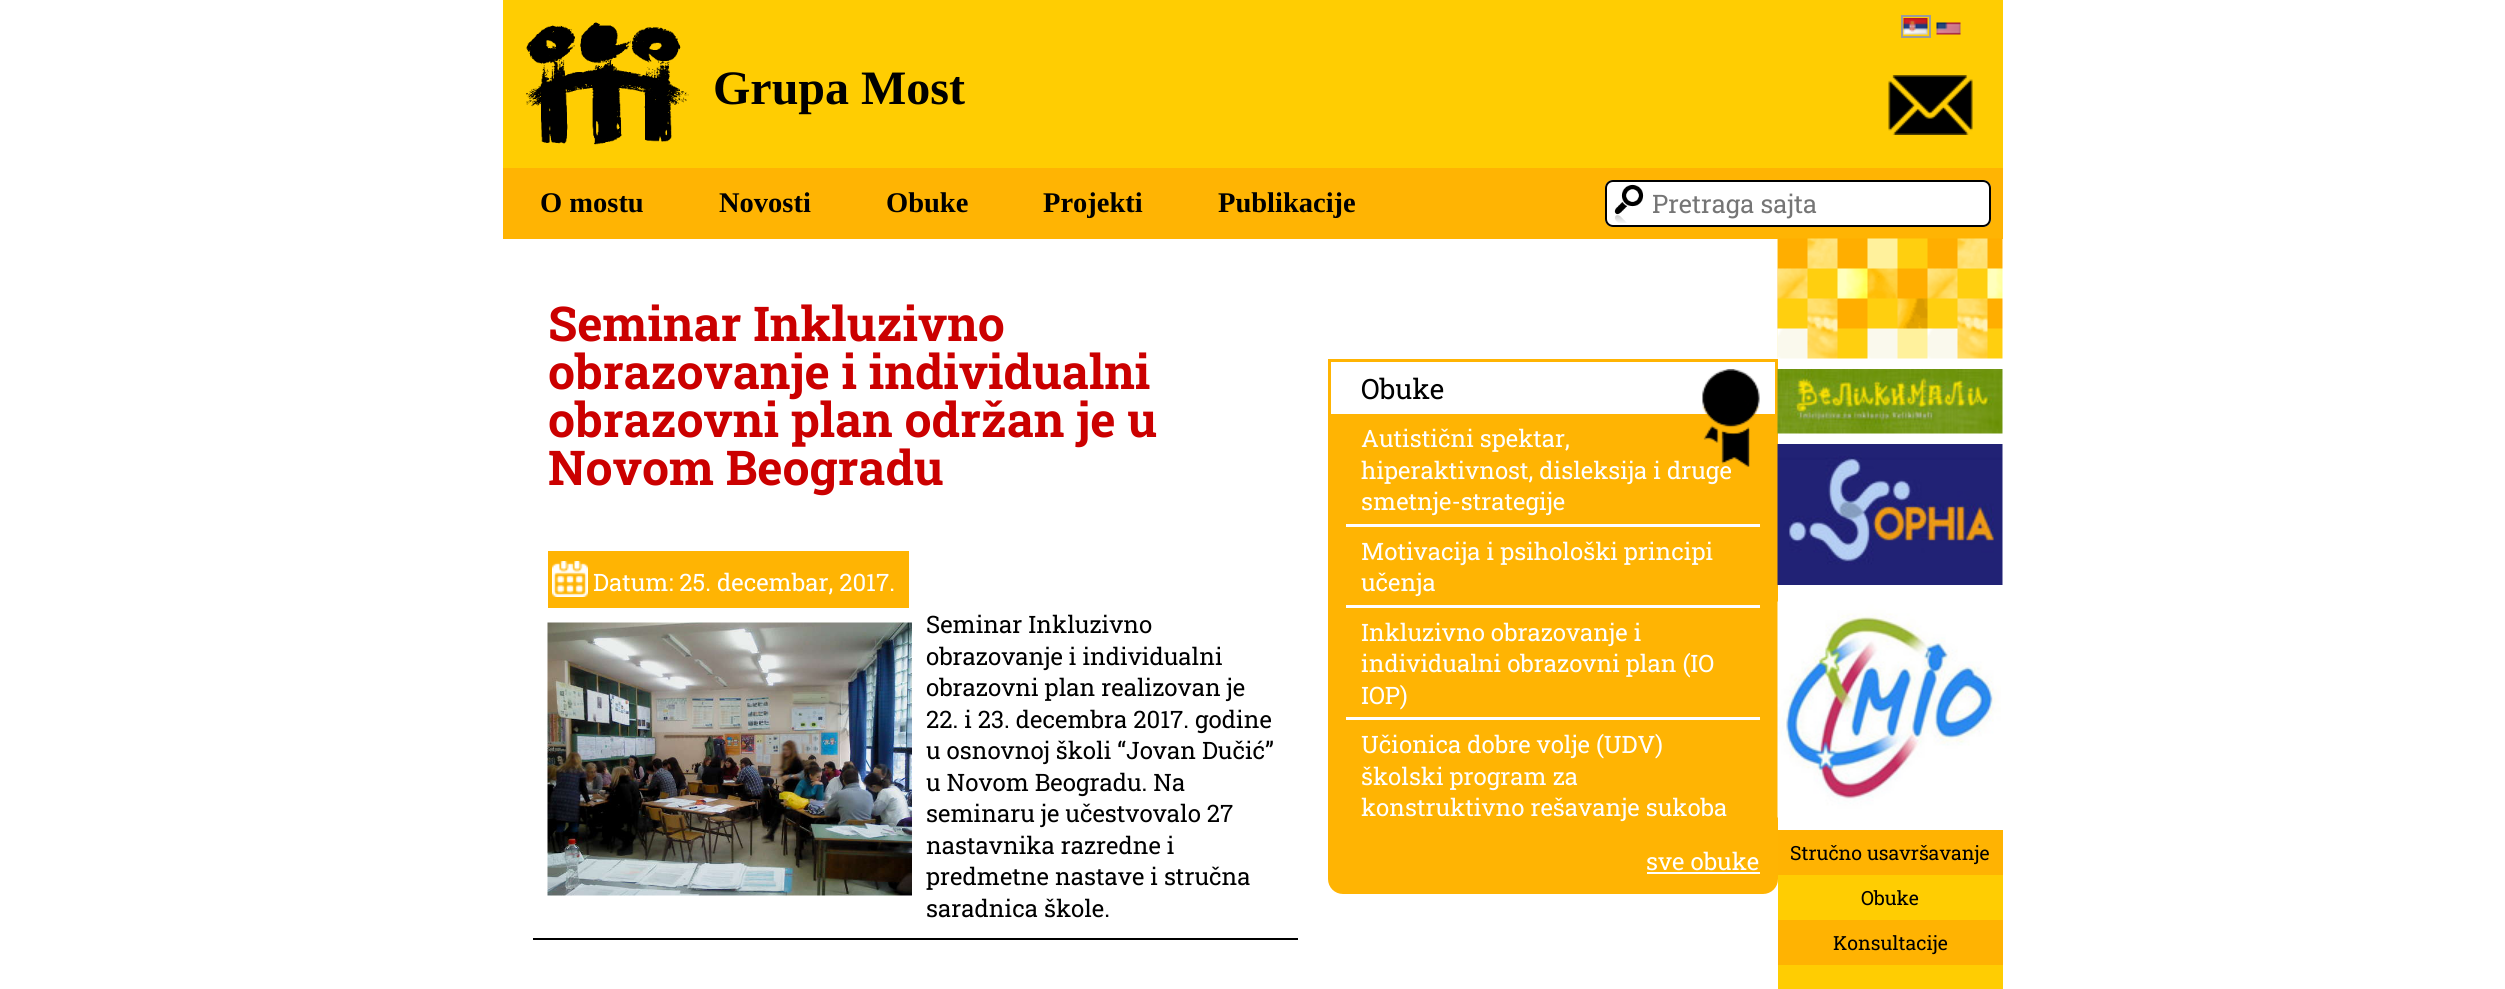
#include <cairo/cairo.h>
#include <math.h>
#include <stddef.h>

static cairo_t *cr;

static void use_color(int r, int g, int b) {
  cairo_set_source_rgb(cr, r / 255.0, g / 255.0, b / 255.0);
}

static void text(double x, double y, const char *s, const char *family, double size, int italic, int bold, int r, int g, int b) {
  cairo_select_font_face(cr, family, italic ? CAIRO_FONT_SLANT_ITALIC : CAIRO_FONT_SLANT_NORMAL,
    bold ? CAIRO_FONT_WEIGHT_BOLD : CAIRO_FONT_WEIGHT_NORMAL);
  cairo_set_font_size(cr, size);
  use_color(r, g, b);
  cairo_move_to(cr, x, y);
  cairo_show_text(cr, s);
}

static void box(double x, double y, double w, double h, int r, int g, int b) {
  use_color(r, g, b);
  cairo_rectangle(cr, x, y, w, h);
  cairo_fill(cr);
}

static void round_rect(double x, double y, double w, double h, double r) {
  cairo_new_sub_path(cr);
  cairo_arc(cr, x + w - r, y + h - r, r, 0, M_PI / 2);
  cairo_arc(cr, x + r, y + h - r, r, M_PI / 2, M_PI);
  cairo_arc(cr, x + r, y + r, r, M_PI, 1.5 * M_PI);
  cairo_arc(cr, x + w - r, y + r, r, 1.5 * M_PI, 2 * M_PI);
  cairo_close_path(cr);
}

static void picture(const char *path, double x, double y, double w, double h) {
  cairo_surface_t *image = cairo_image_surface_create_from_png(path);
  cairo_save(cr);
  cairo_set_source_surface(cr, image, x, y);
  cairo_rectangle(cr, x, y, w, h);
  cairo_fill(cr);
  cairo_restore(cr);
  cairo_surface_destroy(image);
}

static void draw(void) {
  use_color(255, 255, 255);
  cairo_paint(cr);
  box(503, 0, 1500, 168, 255, 205, 2);
  cairo_rectangle(cr, 1902, 16, 28, 21);
  use_color(156, 156, 156);
  cairo_stroke(cr);
  picture("img_01.png", 1903, 18, 25, 17);
  picture("img_02.png", 1936, 22, 25, 13);
  picture("img_03.png", 526, 22, 163, 123);
  picture("img_04.png", 1888, 75, 85, 60);
  box(503, 168, 1500, 71, 255, 180, 3);
  use_color(255, 255, 255);
  round_rect(1605, 180, 386, 47, 8);
  cairo_fill(cr);
  picture("img_05.png", 1614, 184, 30, 39);
  round_rect(1606, 181, 384, 45, 7);
  use_color(0, 0, 0);
  cairo_stroke(cr);
  box(533, 938, 765, 2, 0, 0, 0);
  box(548, 551, 361, 57, 255, 180, 3);
  picture("img_06.png", 552, 561, 36, 36);
  picture("img_07.png", 547, 622, 365, 274);
  cairo_new_path(cr);
  cairo_move_to(cr, 1329.5, 360.5);
  cairo_line_to(cr, 1776.5, 360.5);
  cairo_line_to(cr, 1776.5, 879);
  cairo_curve_to(cr, 1776.5, 886.5, 1770.5, 892.5, 1763, 892.5);
  cairo_line_to(cr, 1343, 892.5);
  cairo_curve_to(cr, 1335.5, 892.5, 1329.5, 886.5, 1329.5, 879);
  cairo_close_path(cr);
  cairo_fill_preserve(cr);
  cairo_set_line_width(cr, 3);
  cairo_stroke(cr);
  box(1331, 362, 444, 52, 255, 255, 255);
  box(1346, 524, 414, 3, 255, 255, 255);
  box(1346, 605, 414, 3, 255, 255, 255);
  box(1346, 717, 414, 3, 255, 255, 255);
  box(1647, 872, 113, 2, 255, 255, 255);
  picture("img_09.png", 1777, 238, 226, 121);
  picture("img_10.png", 1777, 369, 226, 65);
  picture("img_11.png", 1777, 444, 226, 141);
  picture("img_12.png", 1777, 601, 224, 217);
  box(1778, 830, 225, 45, 255, 179, 2);
  box(1778, 875, 225, 45, 255, 205, 2);
  box(1778, 920, 225, 45, 255, 179, 2);
  box(1778, 965, 225, 24, 255, 205, 2);
  text(713, 104, "Grupa Most", "Liberation Serif", 48, 0, 1, 0, 0, 0);
  text(540, 212, "O mostu", "Liberation Serif", 28.5, 0, 1, 0, 0, 0);
  text(719, 212, "Novosti", "Liberation Serif", 28.5, 0, 1, 0, 0, 0);
  text(886, 212, "Obuke", "Liberation Serif", 28.5, 0, 1, 0, 0, 0);
  text(1043, 212, "Projekti", "Liberation Serif", 28.5, 0, 1, 0, 0, 0);
  text(1218, 212, "Publikacije", "Liberation Serif", 28.5, 0, 1, 0, 0, 0);
  text(1652, 213, "Pretraga sajta", "Roboto Slab", 25.5, 0, 0, 117, 117, 117);
  text(548, 341, "Seminar Inkluzivno", "Roboto Slab", 48, 0, 1, 203, 0, 0);
  text(548, 389, "obrazovanje i individualni", "Roboto Slab", 48, 0, 1, 203, 0, 0);
  text(548, 437, "obrazovni plan održan je u", "Roboto Slab", 48, 0, 1, 203, 0, 0);
  text(548, 485, "Novom Beogradu", "Roboto Slab", 48, 0, 1, 203, 0, 0);
  text(593, 591, "Datum: 25. decembar, 2017.", "Roboto Slab", 24, 0, 0, 255, 255, 255);
  text(926, 633, "Seminar Inkluzivno", "Roboto Slab", 24, 0, 0, 0, 0, 0);
  text(926, 665, "obrazovanje i individualni", "Roboto Slab", 24, 0, 0, 0, 0, 0);
  text(926, 696, "obrazovni plan realizovan je", "Roboto Slab", 24, 0, 0, 0, 0, 0);
  text(926, 728, "22. i 23. decembra 2017. godine", "Roboto Slab", 24, 0, 0, 0, 0, 0);
  text(926, 759, "u osnovnoj školi “Jovan Dučić”", "Roboto Slab", 24, 0, 0, 0, 0, 0);
  text(926, 791, "u Novom Beogradu. Na", "Roboto Slab", 24, 0, 0, 0, 0, 0);
  text(926, 822, "seminaru je učestvovalo 27", "Roboto Slab", 24, 0, 0, 0, 0, 0);
  text(926, 854, "nastavnika razredne i", "Roboto Slab", 24, 0, 0, 0, 0, 0);
  text(926, 885, "predmetne nastave i stručna", "Roboto Slab", 24, 0, 0, 0, 0, 0);
  text(926, 917, "saradnica škole.", "Roboto Slab", 24, 0, 0, 0, 0, 0);
  text(1361, 399, "Obuke", "Roboto Slab", 28, 0, 0, 0, 0, 0);
  text(1361, 447, "Autistični spektar,", "Roboto Slab", 24, 0, 0, 255, 255, 255);
  text(1361, 479, "hiperaktivnost, disleksija i druge", "Roboto Slab", 24, 0, 0, 255, 255, 255);
  picture("img_08.png", 1702, 369, 58, 98);
  text(1361, 510, "smetnje-strategije", "Roboto Slab", 24, 0, 0, 255, 255, 255);
  text(1361, 560, "Motivacija i psihološki principi", "Roboto Slab", 24, 0, 0, 255, 255, 255);
  text(1361, 591, "učenja", "Roboto Slab", 24, 0, 0, 255, 255, 255);
  text(1361, 641, "Inkluzivno obrazovanje i", "Roboto Slab", 24, 0, 0, 255, 255, 255);
  text(1361, 672, "individualni obrazovni plan (IO", "Roboto Slab", 24, 0, 0, 255, 255, 255);
  text(1361, 704, "IOP)", "Roboto Slab", 24, 0, 0, 255, 255, 255);
  text(1361, 753, "Učionica dobre volje (UDV)", "Roboto Slab", 24, 0, 0, 255, 255, 255);
  text(1361, 785, "školski program za", "Roboto Slab", 24, 0, 0, 255, 255, 255);
  text(1361, 816, "konstruktivno rešavanje sukoba", "Roboto Slab", 24, 0, 0, 255, 255, 255);
  text(1646, 870, "sve obuke", "Roboto Slab", 24, 0, 0, 255, 255, 255);
  text(1790, 860, "Stručno usavršavanje", "Roboto Slab", 19.5, 0, 0, 0, 0, 0);
  text(1861, 905, "Obuke", "Roboto Slab", 19.5, 0, 0, 0, 0, 0);
  text(1833, 950, "Konsultacije", "Roboto Slab", 19.5, 0, 0, 0, 0, 0);
}

int main(void) {
  cairo_surface_t *surface = cairo_image_surface_create(CAIRO_FORMAT_RGB24, 2505, 989);
  cr = cairo_create(surface);
  cairo_font_options_t *options = cairo_font_options_create();
  cairo_font_options_set_hint_metrics(options, CAIRO_HINT_METRICS_OFF);
  cairo_font_options_set_hint_style(options, CAIRO_HINT_STYLE_NONE);
  cairo_set_font_options(cr, options);
  cairo_set_miter_limit(cr, 4);
  draw();
  cairo_surface_write_to_png(surface, "out.png");
  cairo_font_options_destroy(options);
  cairo_destroy(cr);
  cairo_surface_destroy(surface);
  return 0;
}
